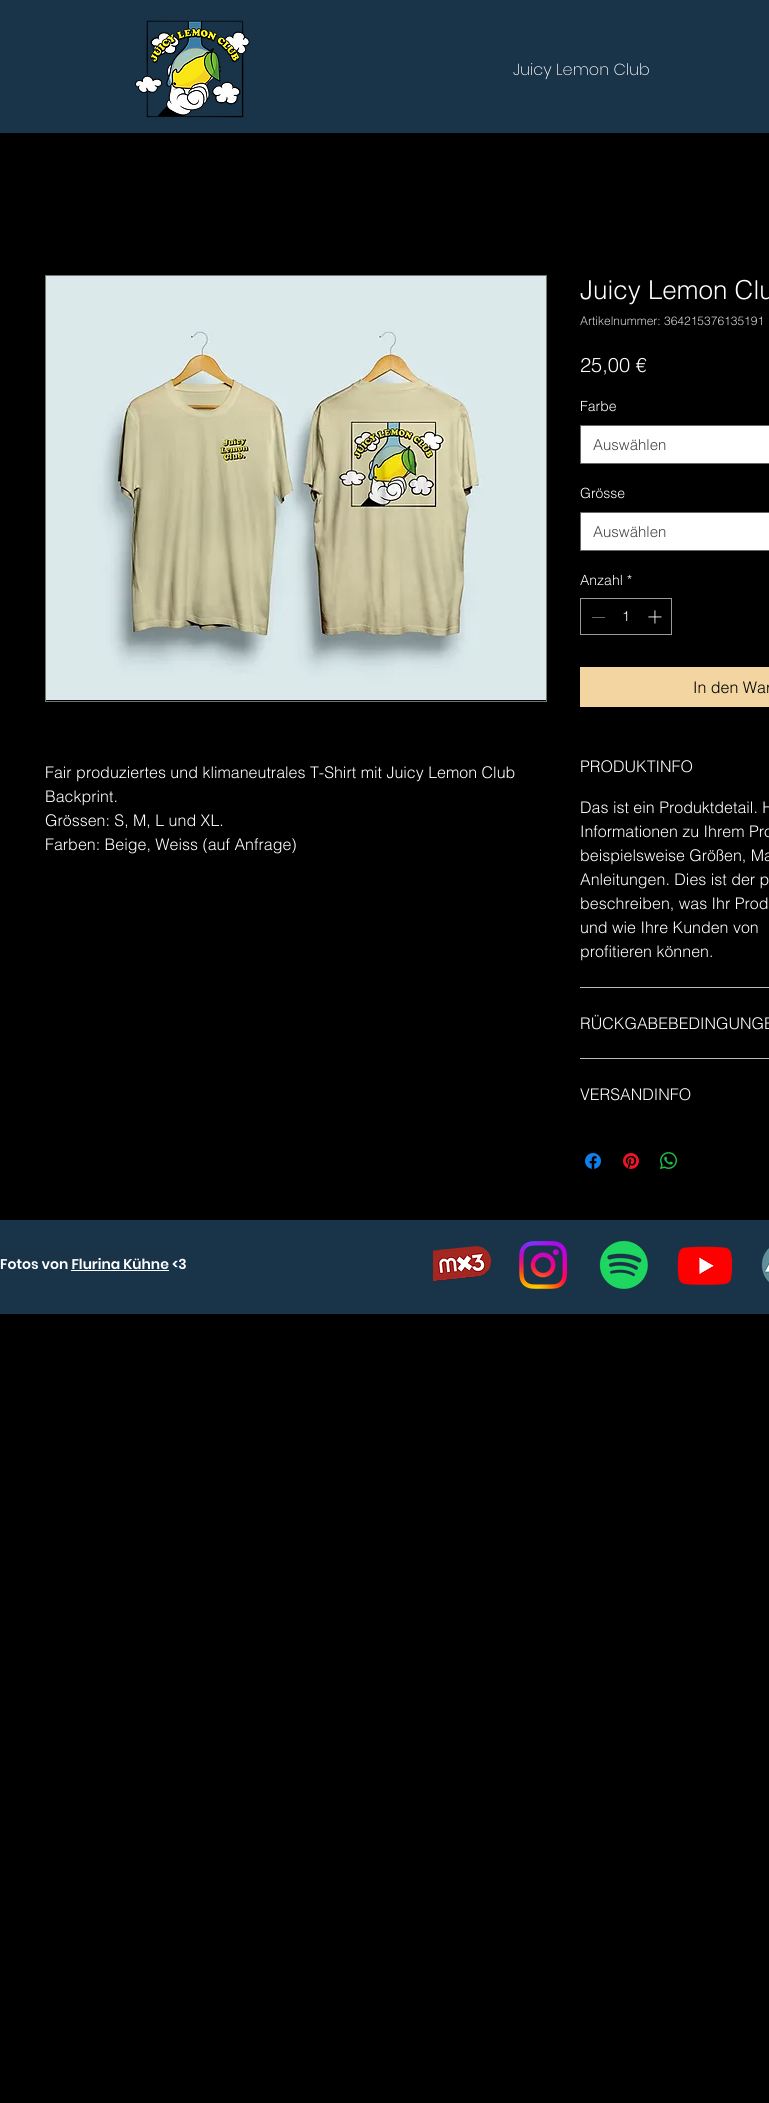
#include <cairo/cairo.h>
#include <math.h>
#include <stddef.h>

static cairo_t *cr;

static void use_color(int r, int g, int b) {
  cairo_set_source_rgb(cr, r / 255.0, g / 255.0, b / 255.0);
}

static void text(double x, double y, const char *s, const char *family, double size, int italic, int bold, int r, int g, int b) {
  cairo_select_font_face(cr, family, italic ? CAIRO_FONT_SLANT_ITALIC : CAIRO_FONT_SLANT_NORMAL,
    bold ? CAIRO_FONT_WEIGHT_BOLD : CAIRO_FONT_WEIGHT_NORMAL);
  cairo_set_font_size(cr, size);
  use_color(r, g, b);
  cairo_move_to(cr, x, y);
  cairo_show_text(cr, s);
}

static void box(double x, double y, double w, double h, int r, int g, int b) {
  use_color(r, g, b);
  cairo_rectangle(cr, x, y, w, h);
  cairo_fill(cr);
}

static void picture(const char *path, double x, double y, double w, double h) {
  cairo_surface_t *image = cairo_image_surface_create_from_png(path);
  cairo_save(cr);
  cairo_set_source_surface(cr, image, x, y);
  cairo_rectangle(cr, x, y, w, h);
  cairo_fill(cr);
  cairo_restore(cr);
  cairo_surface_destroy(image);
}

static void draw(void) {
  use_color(0, 0, 0);
  cairo_paint(cr);
  box(0, 0, 769, 133, 25, 51, 73);
  picture("img_01.png", 135, 20, 115, 98);
  cairo_rectangle(cr, 45.5, 275.5, 501, 426);
  use_color(117, 117, 117);
  cairo_set_line_width(cr, 1);
  cairo_stroke(cr);
  picture("img_02.png", 46, 276, 500, 424);
  use_color(255, 255, 255);
  cairo_rectangle(cr, 580.5, 425.5, 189, 38);
  cairo_fill_preserve(cr);
  use_color(102, 102, 102);
  cairo_stroke(cr);
  use_color(255, 255, 255);
  cairo_rectangle(cr, 580.5, 512.5, 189, 38);
  cairo_fill_preserve(cr);
  use_color(102, 102, 102);
  cairo_stroke(cr);
  cairo_rectangle(cr, 580.5, 598.5, 91, 36);
  use_color(153, 153, 153);
  cairo_stroke(cr);
  box(592, 617, 13, 1, 100, 100, 100);
  picture("img_03.png", 648, 610, 14, 14);
  box(580, 667, 189, 40, 242, 213, 160);
  box(580, 987, 189, 1, 186, 186, 186);
  box(580, 1058, 189, 1, 186, 186, 186);
  picture("img_04.png", 585, 1153, 16, 16);
  picture("img_05.png", 623, 1153, 16, 16);
  picture("img_06.png", 660, 1152, 17, 17);
  box(0, 1220, 769, 94, 25, 51, 73);
  box(71, 1270, 98, 1, 255, 255, 255);
  picture("img_07.png", 432, 1246, 60, 36);
  picture("img_08.png", 519, 1240, 49, 49);
  picture("img_09.png", 599, 1240, 49, 49);
  picture("img_10.png", 677, 1246, 56, 39);
  picture("img_11.png", 761, 1248, 8, 34);
  text(513, 75, "Juicy Lemon Club", "Poppins ExtraLight", 16, 0, 0, 255, 255, 255);
  text(45, 778, "Fair produziertes und klimaneutrales T-Shirt mit Juicy Lemon Club", "helvetica Light", 16, 0, 0, 255, 255, 255);
  text(45, 802, "Backprint.", "helvetica Light", 16, 0, 0, 255, 255, 255);
  text(45, 826, "Grössen: S, M, L und XL.", "helvetica Light", 16, 0, 0, 255, 255, 255);
  text(45, 850, "Farben: Beige, Weiss (auf Anfrage)", "helvetica Light", 16, 0, 0, 255, 255, 255);
  text(580, 299, "Juicy Lemon Clu", "helvetica Light", 26, 0, 0, 255, 255, 255);
  text(580, 325, "Artikelnummer: 364215376135191", "helvetica Light", 12, 0, 0, 214, 212, 212);
  text(580, 372, "25,00 €", "helvetica Light", 20, 0, 0, 255, 255, 255);
  text(580, 411, "Farbe", "helvetica Light", 14, 0, 0, 255, 255, 255);
  text(593, 450, "Auswählen", "helvetica Light", 15, 0, 0, 68, 68, 68);
  text(580, 498, "Grösse", "helvetica Light", 14, 0, 0, 255, 255, 255);
  text(593, 537, "Auswählen", "helvetica Light", 15, 0, 0, 68, 68, 68);
  text(580, 585, "Anzahl *", "helvetica Light", 14, 0, 0, 255, 255, 255);
  text(622, 621, "1", "helvetica Light", 14, 0, 0, 255, 255, 255);
  text(693, 693, "In den War", "helvetica Light", 16, 0, 0, 0, 0, 0);
  text(580, 772, "PRODUKTINFO", "helvetica Light", 16, 0, 0, 255, 255, 255);
  text(580, 813, "Das ist ein Produktdetail. H", "helvetica Light", 16, 0, 0, 255, 255, 255);
  text(580, 837, "Informationen zu Ihrem Pro", "helvetica Light", 16, 0, 0, 255, 255, 255);
  text(580, 861, "beispielsweise Größen, Ma", "helvetica Light", 16, 0, 0, 255, 255, 255);
  text(580, 885, "Anleitungen. Dies ist der p", "helvetica Light", 16, 0, 0, 255, 255, 255);
  text(580, 909, "beschreiben, was Ihr Prod", "helvetica Light", 16, 0, 0, 255, 255, 255);
  text(580, 933, "und wie Ihre Kunden von", "helvetica Light", 16, 0, 0, 255, 255, 255);
  text(580, 957, "profitieren können.", "helvetica Light", 16, 0, 0, 255, 255, 255);
  text(580, 1029, "RÜCKGABEBEDINGUNGE", "helvetica Light", 16, 0, 0, 255, 255, 255);
  text(580, 1100, "VERSANDINFO", "helvetica Light", 16, 0, 0, 255, 255, 255);
  text(0, 1269, "Fotos von Flurina Kühne <3", "Poppins SemiBold", 14, 0, 0, 255, 255, 255);
}

int main(void) {
  cairo_surface_t *surface = cairo_image_surface_create(CAIRO_FORMAT_RGB24, 769, 2103);
  cr = cairo_create(surface);
  cairo_font_options_t *options = cairo_font_options_create();
  cairo_font_options_set_hint_metrics(options, CAIRO_HINT_METRICS_OFF);
  cairo_font_options_set_hint_style(options, CAIRO_HINT_STYLE_NONE);
  cairo_set_font_options(cr, options);
  cairo_set_miter_limit(cr, 4);
  draw();
  cairo_surface_write_to_png(surface, "out.png");
  cairo_font_options_destroy(options);
  cairo_destroy(cr);
  cairo_surface_destroy(surface);
  return 0;
}
